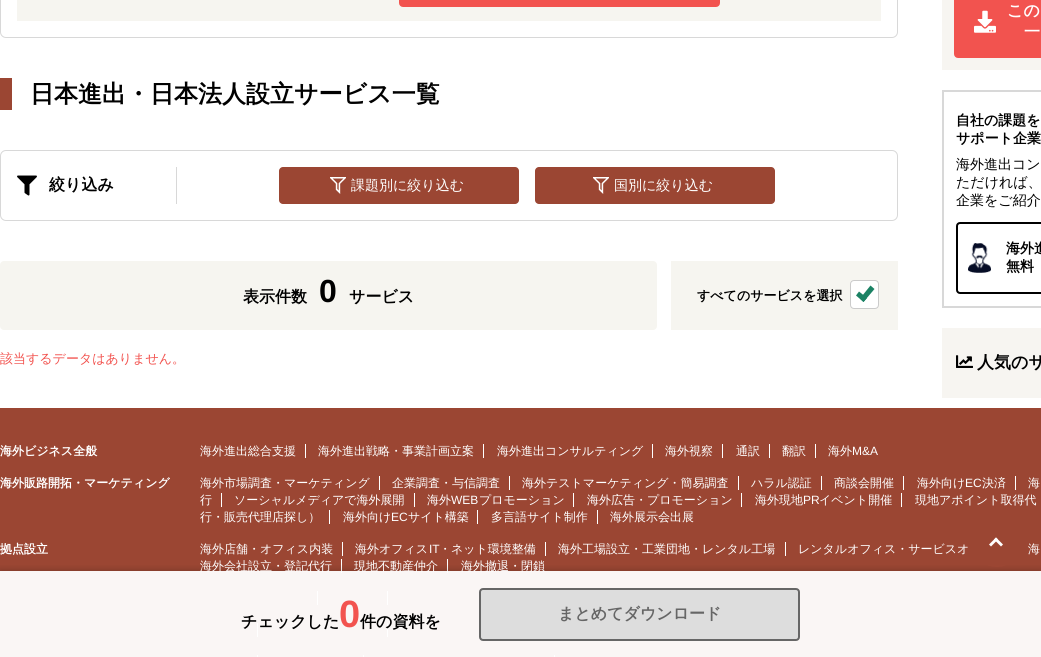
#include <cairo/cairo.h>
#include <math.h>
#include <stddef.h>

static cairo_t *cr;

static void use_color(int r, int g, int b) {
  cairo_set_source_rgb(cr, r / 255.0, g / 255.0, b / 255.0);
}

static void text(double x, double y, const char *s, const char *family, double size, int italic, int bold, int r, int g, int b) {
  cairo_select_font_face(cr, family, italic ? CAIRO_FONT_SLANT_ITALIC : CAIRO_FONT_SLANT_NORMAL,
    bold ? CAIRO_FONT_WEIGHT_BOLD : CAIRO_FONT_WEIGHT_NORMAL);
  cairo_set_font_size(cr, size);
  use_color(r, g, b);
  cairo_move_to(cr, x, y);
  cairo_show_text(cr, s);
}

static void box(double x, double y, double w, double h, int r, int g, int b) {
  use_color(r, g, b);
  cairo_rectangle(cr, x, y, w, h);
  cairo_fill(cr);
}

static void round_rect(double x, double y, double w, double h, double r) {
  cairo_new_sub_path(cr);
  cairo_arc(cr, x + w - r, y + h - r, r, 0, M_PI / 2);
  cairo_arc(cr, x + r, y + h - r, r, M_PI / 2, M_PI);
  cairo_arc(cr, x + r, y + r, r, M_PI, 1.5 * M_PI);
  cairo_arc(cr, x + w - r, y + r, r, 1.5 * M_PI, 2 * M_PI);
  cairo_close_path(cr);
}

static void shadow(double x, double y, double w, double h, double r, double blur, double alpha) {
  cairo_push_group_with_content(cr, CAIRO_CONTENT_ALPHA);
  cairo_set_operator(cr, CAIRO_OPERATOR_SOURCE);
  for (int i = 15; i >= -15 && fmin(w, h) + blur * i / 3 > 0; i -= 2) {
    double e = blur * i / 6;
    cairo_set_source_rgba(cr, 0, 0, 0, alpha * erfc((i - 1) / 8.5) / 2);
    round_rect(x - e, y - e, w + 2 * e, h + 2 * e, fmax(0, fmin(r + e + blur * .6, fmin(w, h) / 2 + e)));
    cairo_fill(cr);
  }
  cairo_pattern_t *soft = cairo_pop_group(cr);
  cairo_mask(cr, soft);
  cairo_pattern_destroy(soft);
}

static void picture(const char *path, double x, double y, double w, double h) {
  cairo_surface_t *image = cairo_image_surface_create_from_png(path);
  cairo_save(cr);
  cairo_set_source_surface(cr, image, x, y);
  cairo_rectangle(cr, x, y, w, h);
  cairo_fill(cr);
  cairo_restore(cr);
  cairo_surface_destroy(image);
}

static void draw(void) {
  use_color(255, 255, 255);
  cairo_paint(cr);
  round_rect(0.5, -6.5, 897, 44, 5.5);
  use_color(216, 216, 216);
  cairo_set_line_width(cr, 1);
  cairo_stroke(cr);
  box(17, 0, 864, 21, 246, 245, 240);
  use_color(242, 83, 79);
  round_rect(400, -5, 319, 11, 3);
  cairo_fill_preserve(cr);
  cairo_set_line_width(cr, 2);
  cairo_stroke(cr);
  box(0, 78, 12, 32, 155, 70, 51);
  round_rect(0.5, 150.5, 897, 70, 5.5);
  use_color(216, 216, 216);
  cairo_set_line_width(cr, 1);
  cairo_stroke(cr);
  box(176, 167, 1, 37, 216, 216, 216);
  picture("img_01.png", 17, 175, 20, 21);
  use_color(155, 70, 51);
  round_rect(279, 167, 240, 37, 4);
  cairo_fill(cr);
  picture("img_02.png", 330, 177, 16, 17);
  round_rect(535, 167, 240, 37, 4);
  cairo_fill(cr);
  picture("img_02.png", 593, 177, 16, 17);
  use_color(246, 245, 240);
  round_rect(0, 261, 657, 69, 4);
  cairo_fill(cr);
  box(671, 261, 227, 69, 246, 245, 240);
  use_color(255, 255, 255);
  round_rect(850.5, 280.5, 28, 28, 3.5);
  cairo_fill_preserve(cr);
  use_color(203, 203, 203);
  cairo_stroke(cr);
  use_color(27, 130, 100);
  cairo_new_path(cr);
  cairo_move_to(cr, 870.5, 285.5);
  cairo_line_to(cr, 874.5, 289);
  cairo_line_to(cr, 863.5, 302);
  cairo_line_to(cr, 860, 298.5);
  cairo_close_path(cr);
  cairo_fill(cr);
  cairo_new_path(cr);
  cairo_move_to(cr, 859, 291.5);
  cairo_line_to(cr, 867, 298);
  cairo_line_to(cr, 863.5, 302);
  cairo_line_to(cr, 856, 295.5);
  cairo_close_path(cr);
  cairo_fill(cr);
  box(942, 0, 99, 70, 247, 245, 241);
  use_color(242, 83, 79);
  round_rect(955, -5, 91, 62, 3);
  cairo_fill_preserve(cr);
  cairo_set_line_width(cr, 2);
  cairo_stroke(cr);
  picture("img_03.png", 974, 10, 22, 23);
  cairo_rectangle(cr, 943, 91, 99, 216);
  use_color(216, 216, 216);
  cairo_stroke(cr);
  round_rect(957, 223, 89, 70, 3);
  use_color(0, 0, 0);
  cairo_stroke(cr);
  picture("img_04.png", 968, 243, 23, 30);
  box(942, 328, 99, 70, 247, 245, 241);
  picture("img_05.png", 956, 355, 17, 13);
  box(0, 408, 1041, 249, 155, 70, 51);
  box(305, 444, 1, 14, 255, 255, 255);
  box(483, 444, 1, 14, 255, 255, 255);
  box(652, 444, 1, 14, 255, 255, 255);
  box(722, 444, 1, 14, 255, 255, 255);
  box(769, 444, 1, 14, 255, 255, 255);
  box(815, 444, 1, 14, 255, 255, 255);
  box(379, 476, 1, 14, 255, 255, 255);
  box(509, 476, 1, 14, 255, 255, 255);
  box(738, 476, 1, 14, 255, 255, 255);
  box(821, 476, 1, 14, 255, 255, 255);
  box(903, 476, 1, 14, 255, 255, 255);
  box(1015, 476, 1, 14, 255, 255, 255);
  box(221, 493, 1, 14, 255, 255, 255);
  box(414, 493, 1, 14, 255, 255, 255);
  box(573, 493, 1, 14, 255, 255, 255);
  box(741, 493, 1, 14, 255, 255, 255);
  box(901, 493, 1, 14, 255, 255, 255);
  box(329, 510, 1, 14, 255, 255, 255);
  box(477, 510, 1, 14, 255, 255, 255);
  box(597, 510, 1, 14, 255, 255, 255);
  box(342, 542, 1, 14, 255, 255, 255);
  box(545, 542, 1, 14, 255, 255, 255);
  box(785, 542, 1, 14, 255, 255, 255);
  box(341, 559, 1, 14, 255, 255, 255);
  box(447, 559, 1, 14, 255, 255, 255);
  box(317, 591, 1, 14, 255, 255, 255);
  box(387, 591, 1, 14, 255, 255, 255);
  box(257, 623, 1, 14, 255, 255, 255);
  box(387, 623, 1, 14, 255, 255, 255);
  box(257, 655, 1, 2, 255, 255, 255);
  box(363, 655, 1, 2, 255, 255, 255);
  box(554, 655, 1, 2, 255, 255, 255);
  cairo_save(cr);
  cairo_rectangle(cr, 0, 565, 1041, 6);
  cairo_clip(cr);
  use_color(0, 0, 0);
  shadow(0, 571, 1041, 86, 0, 4, 0.25);
  cairo_restore(cr);
  use_color(155, 70, 51);
  cairo_arc(cr, 997, 543, 24, 0, 2 * M_PI);
  cairo_fill(cr);
  use_color(255, 255, 255);
  cairo_new_path(cr);
  cairo_move_to(cr, 991, 546.5);
  cairo_line_to(cr, 989, 544.5);
  cairo_line_to(cr, 996, 537.5);
  cairo_line_to(cr, 998, 539.5);
  cairo_close_path(cr);
  cairo_fill(cr);
  cairo_new_path(cr);
  cairo_move_to(cr, 1001, 546.5);
  cairo_line_to(cr, 994, 539.5);
  cairo_line_to(cr, 996, 537.5);
  cairo_line_to(cr, 1003, 544.5);
  cairo_close_path(cr);
  cairo_fill(cr);
  text(30, 102, "日本進出・日本法人設立サービス一覧", "WenQuanYi Zen Hei", 24, 0, 1, 0, 0, 0);
  text(49, 190, "絞り込み", "WenQuanYi Zen Hei", 16, 0, 1, 0, 0, 0);
  text(351, 190, "課題別に絞り込む", "WenQuanYi Zen Hei Medium", 14, 0, 0, 255, 255, 255);
  text(614, 190, "国別に絞り込む", "WenQuanYi Zen Hei Medium", 14, 0, 0, 255, 255, 255);
  text(243, 302, "表示件数", "WenQuanYi Zen Hei", 16, 0, 1, 0, 0, 0);
  text(319, 302, "0", "Liberation Sans", 32, 0, 1, 0, 0, 0);
  text(349, 302, "サービス", "WenQuanYi Zen Hei", 16, 0, 1, 0, 0, 0);
  text(697, 300, "すべてのサービスを選択", "WenQuanYi Zen Hei", 13, 0, 1, 0, 0, 0);
  text(0, 363, "該当するデータはありません。", "WenQuanYi Zen Hei Medium", 13, 0, 0, 242, 83, 79);
  text(1007, 16, "この", "WenQuanYi Zen Hei", 16, 0, 1, 255, 255, 255);
  text(1024, 37, "一", "WenQuanYi Zen Hei", 16, 0, 1, 255, 255, 255);
  text(956, 125, "自社の課題を", "WenQuanYi Zen Hei", 14, 0, 1, 0, 0, 0);
  text(956, 143, "サポート企業", "WenQuanYi Zen Hei", 14, 0, 1, 0, 0, 0);
  text(956, 169, "海外進出コン", "WenQuanYi Zen Hei Medium", 14, 0, 0, 0, 0, 0);
  text(956, 187, "ただければ、", "WenQuanYi Zen Hei Medium", 14, 0, 0, 0, 0, 0);
  text(956, 205, "企業をご紹介", "WenQuanYi Zen Hei Medium", 14, 0, 0, 0, 0, 0);
  text(1006, 253, "海外進", "WenQuanYi Zen Hei", 14, 0, 1, 0, 0, 0);
  text(1006, 271, "無料", "WenQuanYi Zen Hei", 14, 0, 1, 0, 0, 0);
  text(977, 368, "人気のサ", "WenQuanYi Zen Hei", 17, 0, 1, 0, 0, 0);
  text(0, 455, "海外ビジネス全般", "WenQuanYi Zen Hei", 12, 0, 1, 255, 255, 255);
  text(200, 455, "海外進出総合支援", "WenQuanYi Zen Hei Medium", 12, 0, 0, 255, 255, 255);
  text(318, 455, "海外進出戦略・事業計画立案", "WenQuanYi Zen Hei Medium", 12, 0, 0, 255, 255, 255);
  text(497, 455, "海外進出コンサルティング", "WenQuanYi Zen Hei Medium", 12, 0, 0, 255, 255, 255);
  text(665, 455, "海外視察", "WenQuanYi Zen Hei Medium", 12, 0, 0, 255, 255, 255);
  text(736, 455, "通訳", "WenQuanYi Zen Hei Medium", 12, 0, 0, 255, 255, 255);
  text(782, 455, "翻訳", "WenQuanYi Zen Hei Medium", 12, 0, 0, 255, 255, 255);
  text(828, 455, "海外", "WenQuanYi Zen Hei Medium", 12, 0, 0, 255, 255, 255);
  text(852, 455, "M&A", "Liberation Sans", 12, 0, 0, 255, 255, 255);
  text(0, 487, "海外販路開拓・マーケティング", "WenQuanYi Zen Hei", 12, 0, 1, 255, 255, 255);
  text(200, 487, "海外市場調査・マーケティング", "WenQuanYi Zen Hei Medium", 12, 0, 0, 255, 255, 255);
  text(392, 487, "企業調査・与信調査", "WenQuanYi Zen Hei Medium", 12, 0, 0, 255, 255, 255);
  text(522, 487, "海外テストマーケティング・簡易調査", "WenQuanYi Zen Hei Medium", 12, 0, 0, 255, 255, 255);
  text(751, 487, "ハラル認証", "WenQuanYi Zen Hei Medium", 12, 0, 0, 255, 255, 255);
  text(834, 487, "商談会開催", "WenQuanYi Zen Hei Medium", 12, 0, 0, 255, 255, 255);
  text(917, 487, "海外向け", "WenQuanYi Zen Hei Medium", 12, 0, 0, 255, 255, 255);
  text(965, 487, "EC", "Liberation Sans", 12, 0, 0, 255, 255, 255);
  text(982, 487, "決済", "WenQuanYi Zen Hei Medium", 12, 0, 0, 255, 255, 255);
  text(1028, 487, "海", "WenQuanYi Zen Hei Medium", 12, 0, 0, 255, 255, 255);
  text(200, 504, "行", "WenQuanYi Zen Hei Medium", 12, 0, 0, 255, 255, 255);
  text(234, 504, "ソーシャルメディアで海外展開", "WenQuanYi Zen Hei Medium", 12, 0, 0, 255, 255, 255);
  text(427, 504, "海外", "WenQuanYi Zen Hei Medium", 12, 0, 0, 255, 255, 255);
  text(451, 504, "WEB", "Liberation Sans", 12, 0, 0, 255, 255, 255);
  text(479, 504, "プロモーション", "WenQuanYi Zen Hei Medium", 12, 0, 0, 255, 255, 255);
  text(587, 504, "海外広告・プロモーション", "WenQuanYi Zen Hei Medium", 12, 0, 0, 255, 255, 255);
  text(755, 504, "海外現地", "WenQuanYi Zen Hei Medium", 12, 0, 0, 255, 255, 255);
  text(803, 504, "PR", "Liberation Sans", 12, 0, 0, 255, 255, 255);
  text(819, 504, "イベント開催", "WenQuanYi Zen Hei Medium", 12, 0, 0, 255, 255, 255);
  text(915, 504, "現地アポイント取得代", "WenQuanYi Zen Hei Medium", 12, 0, 0, 255, 255, 255);
  text(200, 521, "行・販売代理店探し）", "WenQuanYi Zen Hei Medium", 12, 0, 0, 255, 255, 255);
  text(343, 521, "海外向け", "WenQuanYi Zen Hei Medium", 12, 0, 0, 255, 255, 255);
  text(391, 521, "EC", "Liberation Sans", 12, 0, 0, 255, 255, 255);
  text(408, 521, "サイト構築", "WenQuanYi Zen Hei Medium", 12, 0, 0, 255, 255, 255);
  text(491, 521, "多言語サイト制作", "WenQuanYi Zen Hei Medium", 12, 0, 0, 255, 255, 255);
  text(610, 521, "海外展示会出展", "WenQuanYi Zen Hei Medium", 12, 0, 0, 255, 255, 255);
  text(0, 553, "拠点設立", "WenQuanYi Zen Hei", 12, 0, 1, 255, 255, 255);
  text(200, 553, "海外店舗・オフィス内装", "WenQuanYi Zen Hei Medium", 12, 0, 0, 255, 255, 255);
  text(355, 553, "海外オフィス", "WenQuanYi Zen Hei Medium", 12, 0, 0, 255, 255, 255);
  text(429, 553, "IT", "Liberation Sans", 12, 0, 0, 255, 255, 255);
  text(439, 553, "・ネット環境整備", "WenQuanYi Zen Hei Medium", 12, 0, 0, 255, 255, 255);
  text(558, 553, "海外工場設立・工業団地・レンタル工場", "WenQuanYi Zen Hei Medium", 12, 0, 0, 255, 255, 255);
  text(798, 553, "レンタルオフィス・サービスオ", "WenQuanYi Zen Hei Medium", 12, 0, 0, 255, 255, 255);
  text(1028, 553, "海", "WenQuanYi Zen Hei Medium", 12, 0, 0, 255, 255, 255);
  text(200, 570, "海外会社設立・登記代行", "WenQuanYi Zen Hei Medium", 12, 0, 0, 255, 255, 255);
  text(354, 570, "現地不動産仲介", "WenQuanYi Zen Hei Medium", 12, 0, 0, 255, 255, 255);
  text(461, 570, "海外撤退・閉鎖", "WenQuanYi Zen Hei Medium", 12, 0, 0, 255, 255, 255);
  cairo_set_source_rgba(cr, 1, 1, 1, 0.95);
  cairo_rectangle(cr, 0, 571, 1041, 86);
  cairo_fill(cr);
  text(241, 627, "チェックした", "WenQuanYi Zen Hei", 16, 0, 1, 0, 0, 0);
  text(339, 627, "0", "Liberation Sans", 38, 0, 1, 242, 83, 79);
  text(360, 627, "件の資料を", "WenQuanYi Zen Hei", 16, 0, 1, 0, 0, 0);
  use_color(221, 221, 221);
  round_rect(480, 589, 319, 51, 3);
  cairo_fill_preserve(cr);
  use_color(102, 102, 102);
  cairo_stroke(cr);
  text(558, 619, "まとめてダウンロード", "WenQuanYi Zen Hei", 16, 0, 1, 102, 102, 102);
}

int main(void) {
  cairo_surface_t *surface = cairo_image_surface_create(CAIRO_FORMAT_RGB24, 1041, 657);
  cr = cairo_create(surface);
  cairo_font_options_t *options = cairo_font_options_create();
  cairo_font_options_set_hint_metrics(options, CAIRO_HINT_METRICS_OFF);
  cairo_font_options_set_hint_style(options, CAIRO_HINT_STYLE_NONE);
  cairo_set_font_options(cr, options);
  cairo_set_miter_limit(cr, 4);
  draw();
  cairo_surface_write_to_png(surface, "out.png");
  cairo_font_options_destroy(options);
  cairo_destroy(cr);
  cairo_surface_destroy(surface);
  return 0;
}
